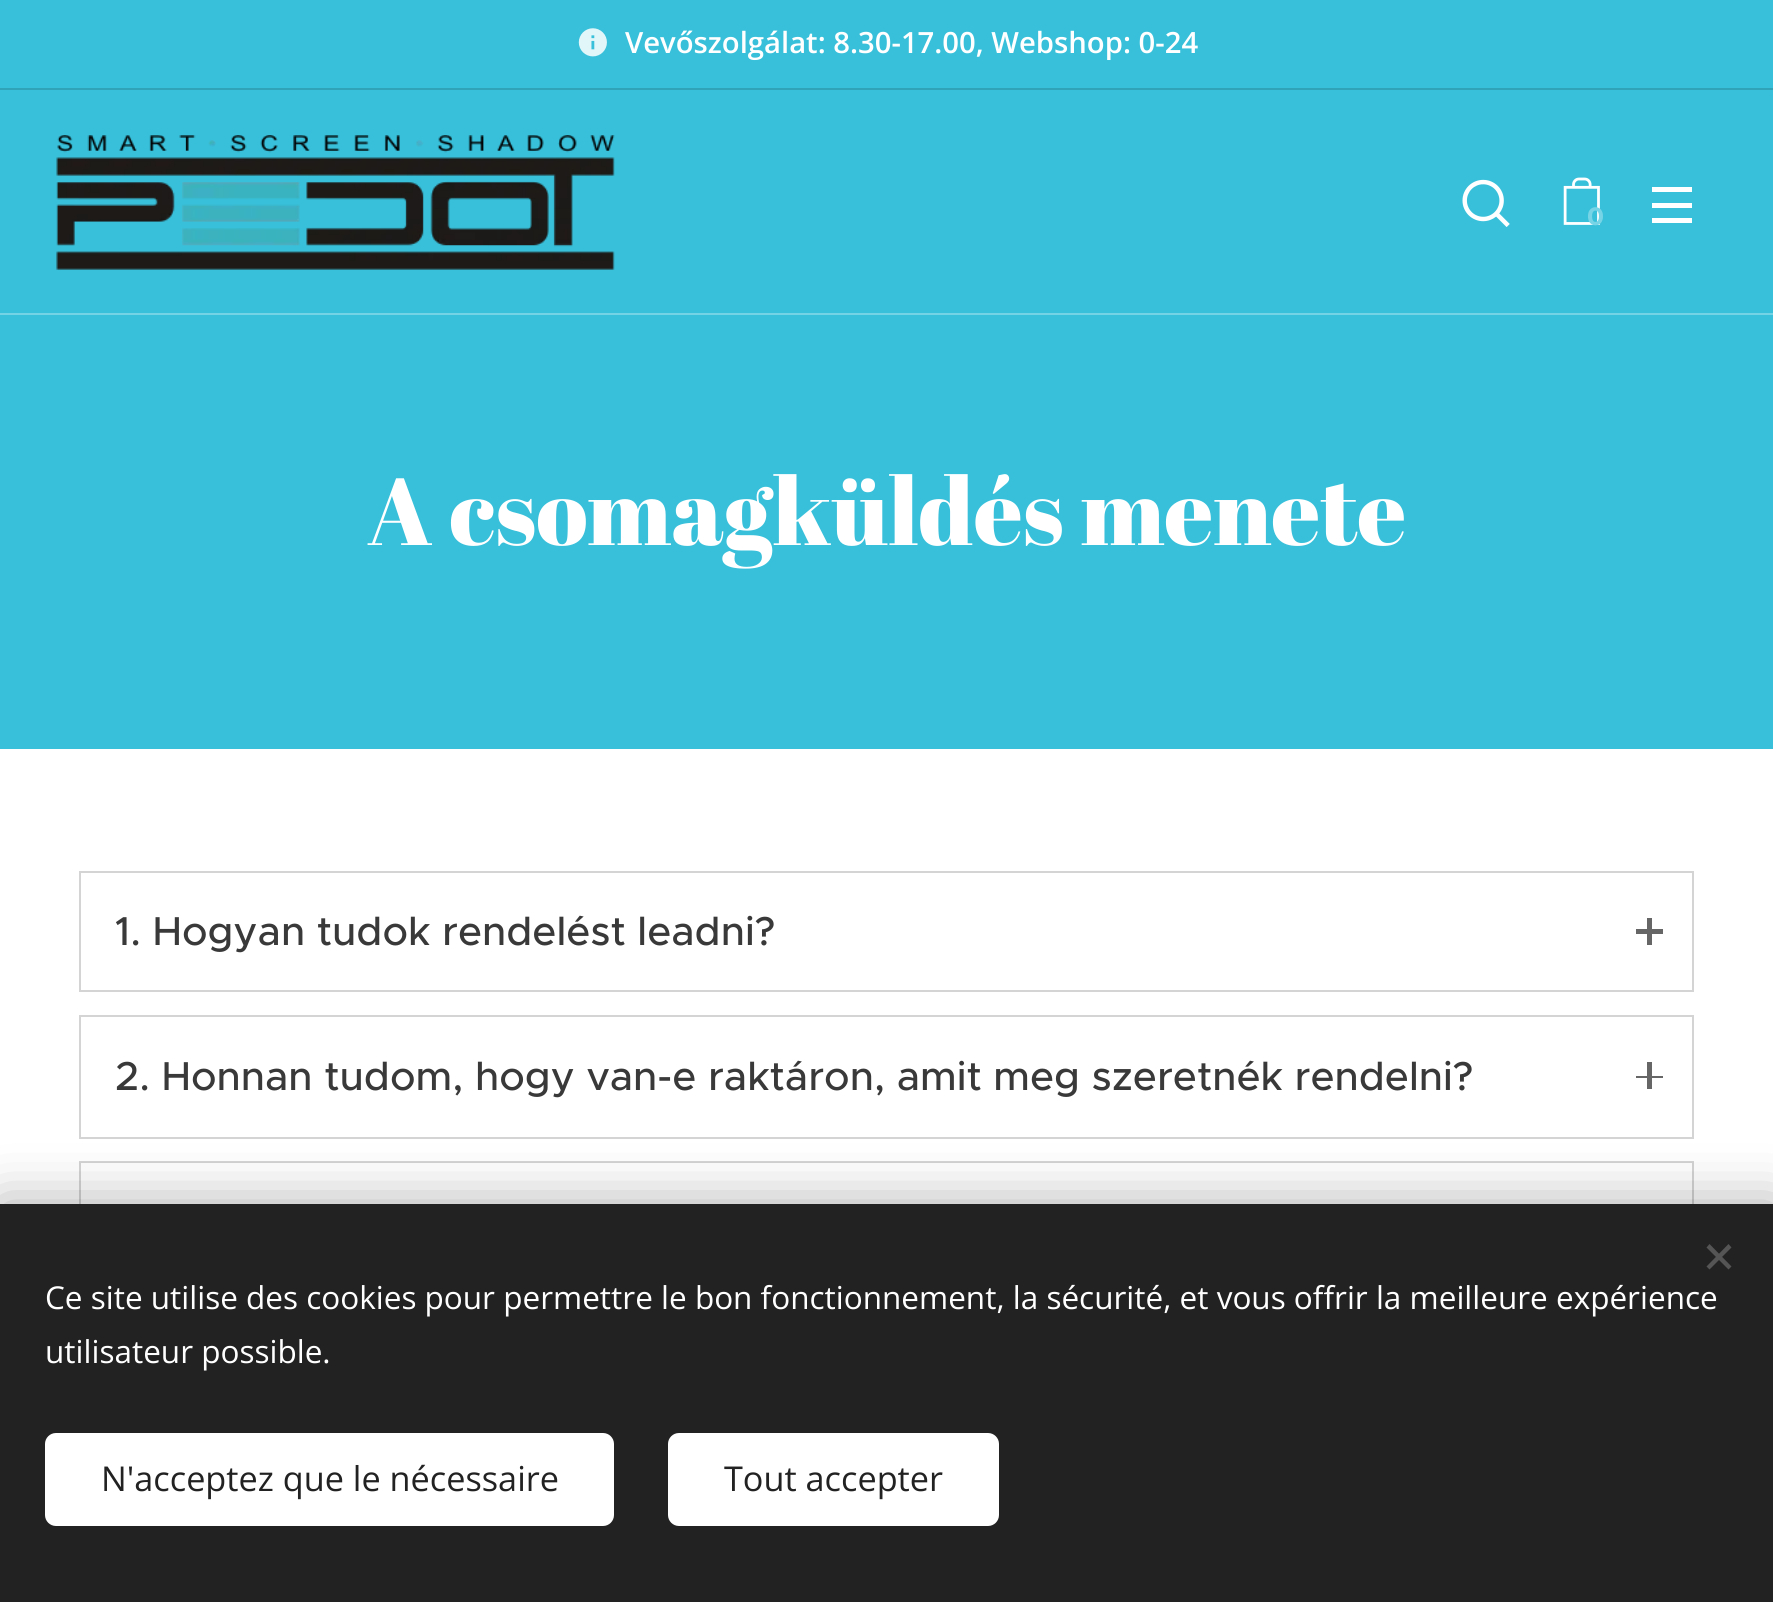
#include <cairo/cairo.h>
#include <math.h>
#include <stddef.h>

static cairo_t *cr;

static void use_color(int r, int g, int b) {
  cairo_set_source_rgb(cr, r / 255.0, g / 255.0, b / 255.0);
}

static void text(double x, double y, const char *s, const char *family, double size, int italic, int bold, int r, int g, int b) {
  cairo_select_font_face(cr, family, italic ? CAIRO_FONT_SLANT_ITALIC : CAIRO_FONT_SLANT_NORMAL,
    bold ? CAIRO_FONT_WEIGHT_BOLD : CAIRO_FONT_WEIGHT_NORMAL);
  cairo_set_font_size(cr, size);
  use_color(r, g, b);
  cairo_move_to(cr, x, y);
  cairo_show_text(cr, s);
}

static void box(double x, double y, double w, double h, int r, int g, int b) {
  use_color(r, g, b);
  cairo_rectangle(cr, x, y, w, h);
  cairo_fill(cr);
}

static void round_rect(double x, double y, double w, double h, double r) {
  cairo_new_sub_path(cr);
  cairo_arc(cr, x + w - r, y + h - r, r, 0, M_PI / 2);
  cairo_arc(cr, x + r, y + h - r, r, M_PI / 2, M_PI);
  cairo_arc(cr, x + r, y + r, r, M_PI, 1.5 * M_PI);
  cairo_arc(cr, x + w - r, y + r, r, 1.5 * M_PI, 2 * M_PI);
  cairo_close_path(cr);
}

static void shadow(double x, double y, double w, double h, double r, double blur, double alpha) {
  cairo_push_group_with_content(cr, CAIRO_CONTENT_ALPHA);
  cairo_set_operator(cr, CAIRO_OPERATOR_SOURCE);
  for (int i = 15; i >= -15 && fmin(w, h) + blur * i / 3 > 0; i -= 2) {
    double e = blur * i / 6;
    cairo_set_source_rgba(cr, 0, 0, 0, alpha * erfc((i - 1) / 8.5) / 2);
    round_rect(x - e, y - e, w + 2 * e, h + 2 * e, fmax(0, fmin(r + e + blur * .6, fmin(w, h) / 2 + e)));
    cairo_fill(cr);
  }
  cairo_pattern_t *soft = cairo_pop_group(cr);
  cairo_mask(cr, soft);
  cairo_pattern_destroy(soft);
}

static void picture(const char *path, double x, double y, double w, double h) {
  cairo_surface_t *image = cairo_image_surface_create_from_png(path);
  cairo_save(cr);
  cairo_set_source_surface(cr, image, x, y);
  cairo_rectangle(cr, x, y, w, h);
  cairo_fill(cr);
  cairo_restore(cr);
  cairo_surface_destroy(image);
}

static void draw(void) {
  use_color(56, 192, 218);
  cairo_paint(cr);
  picture("img_01.png", 578, 28, 29, 29);
  box(0, 88, 1773, 2, 48, 163, 185);
  picture("img_02.png", 56, 135, 559, 135);
  picture("img_03.png", 1462, 179, 48, 48);
  picture("img_04.png", 1563, 177, 37, 48);
  box(1652, 203, 40, 5, 255, 255, 255);
  box(1652, 187, 40, 5, 255, 255, 255);
  box(1652, 218, 40, 5, 255, 255, 255);
  box(0, 313, 1773, 2, 116, 211, 229);
  box(0, 749, 1773, 455, 255, 255, 255);
  cairo_rectangle(cr, 80, 872, 1613, 119);
  use_color(212, 212, 212);
  cairo_stroke(cr);
  box(1647, 918, 5, 27, 102, 102, 102);
  box(1636, 929, 27, 5, 102, 102, 102);
  cairo_rectangle(cr, 80, 1016, 1613, 122);
  use_color(212, 212, 212);
  cairo_stroke(cr);
  box(1647, 1062, 5, 27, 102, 102, 102);
  box(1636, 1076, 27, 2, 102, 102, 102);
  cairo_rectangle(cr, 80, 1162, 1613, 120);
  use_color(212, 212, 212);
  cairo_stroke(cr);
  use_color(0, 0, 0);
  shadow(0, 1204, 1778, 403, 0, 28, 0.33);
  box(0, 1204, 1773, 398, 34, 34, 34);
  use_color(85, 85, 85);
  cairo_new_path(cr);
  cairo_move_to(cr, 1706.5, 1266.5);
  cairo_line_to(cr, 1728.5, 1244);
  cairo_line_to(cr, 1731.5, 1247.5);
  cairo_line_to(cr, 1709.5, 1269.5);
  cairo_close_path(cr);
  cairo_fill(cr);
  cairo_new_path(cr);
  cairo_move_to(cr, 1709.5, 1244);
  cairo_line_to(cr, 1731.5, 1266.5);
  cairo_line_to(cr, 1728.5, 1269.5);
  cairo_line_to(cr, 1706.5, 1247.5);
  cairo_close_path(cr);
  cairo_fill(cr);
  use_color(255, 255, 255);
  round_rect(45, 1433, 569, 93, 11);
  cairo_fill(cr);
  round_rect(668, 1433, 331, 93, 11);
  cairo_fill(cr);
  text(625, 53, "Vevőszolgálat: 8.30-17.00, Webshop: 0-24", "Open Sans SemiBold", 29.25, 0, 0, 255, 255, 255);
  text(1587, 225, "0", "Montserrat", 25, 0, 1, 119, 212, 230);
  text(367, 545, "A csomagküldés menete", "Abril Fatface", 94.5, 0, 0, 255, 255, 255);
  text(115, 945, "1. Hogyan tudok rendelést leadni?", "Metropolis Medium", 40.5, 0, 0, 57, 57, 57);
  text(115, 1090, "2. Honnan tudom, hogy van-e raktáron, amit meg szeretnék rendelni?", "Metropolis Medium", 40.5, 0, 0, 57, 57, 57);
  text(45, 1309, "Ce site utilise des cookies pour permettre le bon fonctionnement, la sécurité, et vous offrir la meilleure expérience", "Open Sans", 31.5, 0, 0, 255, 255, 255);
  text(45, 1363, "utilisateur possible.", "Open Sans", 31.5, 0, 0, 255, 255, 255);
  text(101, 1491, "N'acceptez que le nécessaire", "Open Sans", 34.25, 0, 0, 34, 34, 34);
  text(724, 1491, "Tout accepter", "Open Sans", 34.25, 0, 0, 34, 34, 34);
}

int main(void) {
  cairo_surface_t *surface = cairo_image_surface_create(CAIRO_FORMAT_RGB24, 1773, 1602);
  cr = cairo_create(surface);
  cairo_font_options_t *options = cairo_font_options_create();
  cairo_font_options_set_hint_metrics(options, CAIRO_HINT_METRICS_OFF);
  cairo_font_options_set_hint_style(options, CAIRO_HINT_STYLE_NONE);
  cairo_set_font_options(cr, options);
  cairo_set_miter_limit(cr, 4);
  draw();
  cairo_surface_write_to_png(surface, "out.png");
  cairo_font_options_destroy(options);
  cairo_destroy(cr);
  cairo_surface_destroy(surface);
  return 0;
}
